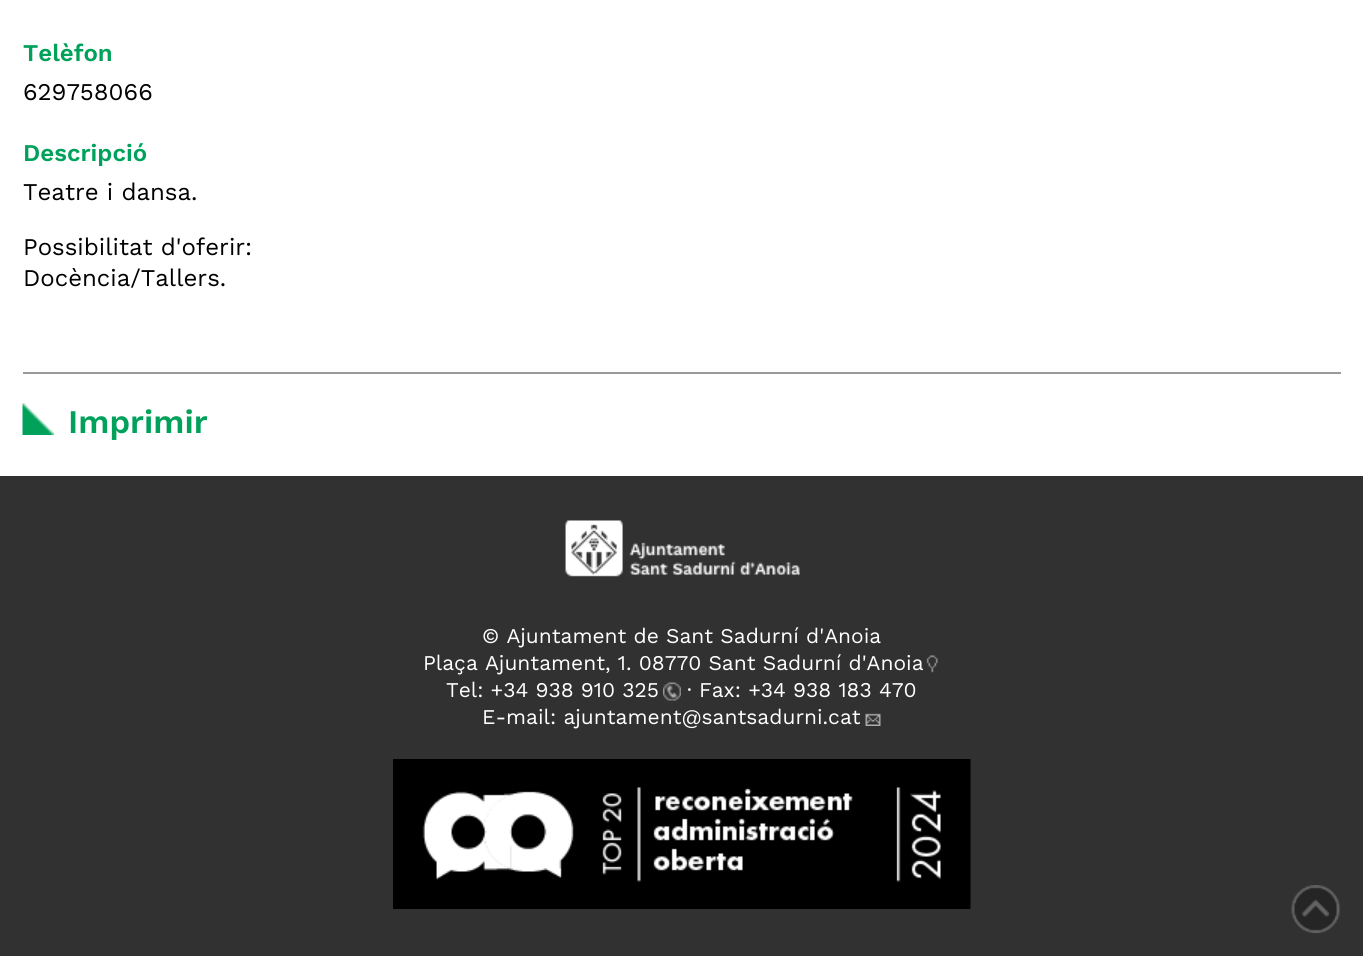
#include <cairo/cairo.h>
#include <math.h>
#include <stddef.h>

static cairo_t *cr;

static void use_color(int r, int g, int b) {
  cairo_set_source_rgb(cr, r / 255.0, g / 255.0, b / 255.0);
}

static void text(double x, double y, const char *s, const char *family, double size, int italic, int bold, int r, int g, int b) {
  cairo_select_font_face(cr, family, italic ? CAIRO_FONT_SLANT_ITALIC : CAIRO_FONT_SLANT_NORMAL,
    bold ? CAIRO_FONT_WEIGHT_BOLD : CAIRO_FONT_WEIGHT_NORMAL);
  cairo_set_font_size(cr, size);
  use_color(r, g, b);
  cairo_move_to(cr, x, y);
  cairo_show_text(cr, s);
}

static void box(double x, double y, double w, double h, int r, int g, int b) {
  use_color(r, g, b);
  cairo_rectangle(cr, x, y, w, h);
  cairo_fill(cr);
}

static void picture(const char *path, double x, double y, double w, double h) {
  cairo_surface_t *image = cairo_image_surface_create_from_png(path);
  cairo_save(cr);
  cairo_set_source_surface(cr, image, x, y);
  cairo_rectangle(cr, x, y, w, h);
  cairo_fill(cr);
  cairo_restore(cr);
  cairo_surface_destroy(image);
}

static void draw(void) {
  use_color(255, 255, 255);
  cairo_paint(cr);
  box(23, 372, 1318, 2, 153, 153, 153);
  picture("img_01.png", 22, 403, 32, 32);
  box(0, 476, 1363, 480, 49, 49, 49);
  picture("img_02.png", 565, 520, 235, 57);
  picture("img_03.png", 926, 655, 12, 18);
  picture("img_04.png", 663, 682, 18, 19);
  picture("img_05.png", 865, 713, 16, 13);
  picture("img_06.png", 393, 759, 578, 150);
  picture("img_07.png", 1291, 885, 49, 48);
  text(23, 61, "Telèfon", "Work Sans SemiBold", 24, 0, 0, 0, 161, 90);
  text(23, 100, "629758066", "Work Sans", 24, 0, 0, 0, 0, 0);
  text(23, 161, "Descripció", "Work Sans SemiBold", 24, 0, 0, 0, 161, 90);
  text(23, 200, "Teatre i dansa.", "Work Sans", 24, 0, 0, 0, 0, 0);
  text(23, 255, "Possibilitat d'oferir:", "Work Sans", 24, 0, 0, 0, 0, 0);
  text(23, 286, "Docència/Tallers.", "Work Sans", 24, 0, 0, 0, 0, 0);
  text(68, 433, "Imprimir", "Work Sans SemiBold", 33, 0, 0, 0, 161, 90);
  text(482, 643, "© Ajuntament de Sant Sadurní d'Anoia", "Work Sans", 21, 0, 0, 255, 255, 255);
  text(423, 670, "Plaça Ajuntament, 1. 08770 Sant Sadurní d'Anoia", "Work Sans", 21, 0, 0, 255, 255, 255);
  text(446, 697, "Tel: +34 938 910 325", "Work Sans", 21, 0, 0, 255, 255, 255);
  text(687, 697, "· Fax: +34 938 183 470", "Work Sans", 21, 0, 0, 255, 255, 255);
  text(482, 724, "E-mail: ajuntament@santsadurni.cat", "Work Sans", 21, 0, 0, 255, 255, 255);
}

int main(void) {
  cairo_surface_t *surface = cairo_image_surface_create(CAIRO_FORMAT_RGB24, 1363, 956);
  cr = cairo_create(surface);
  cairo_font_options_t *options = cairo_font_options_create();
  cairo_font_options_set_hint_metrics(options, CAIRO_HINT_METRICS_OFF);
  cairo_font_options_set_hint_style(options, CAIRO_HINT_STYLE_NONE);
  cairo_set_font_options(cr, options);
  cairo_set_miter_limit(cr, 4);
  draw();
  cairo_surface_write_to_png(surface, "out.png");
  cairo_font_options_destroy(options);
  cairo_destroy(cr);
  cairo_surface_destroy(surface);
  return 0;
}
